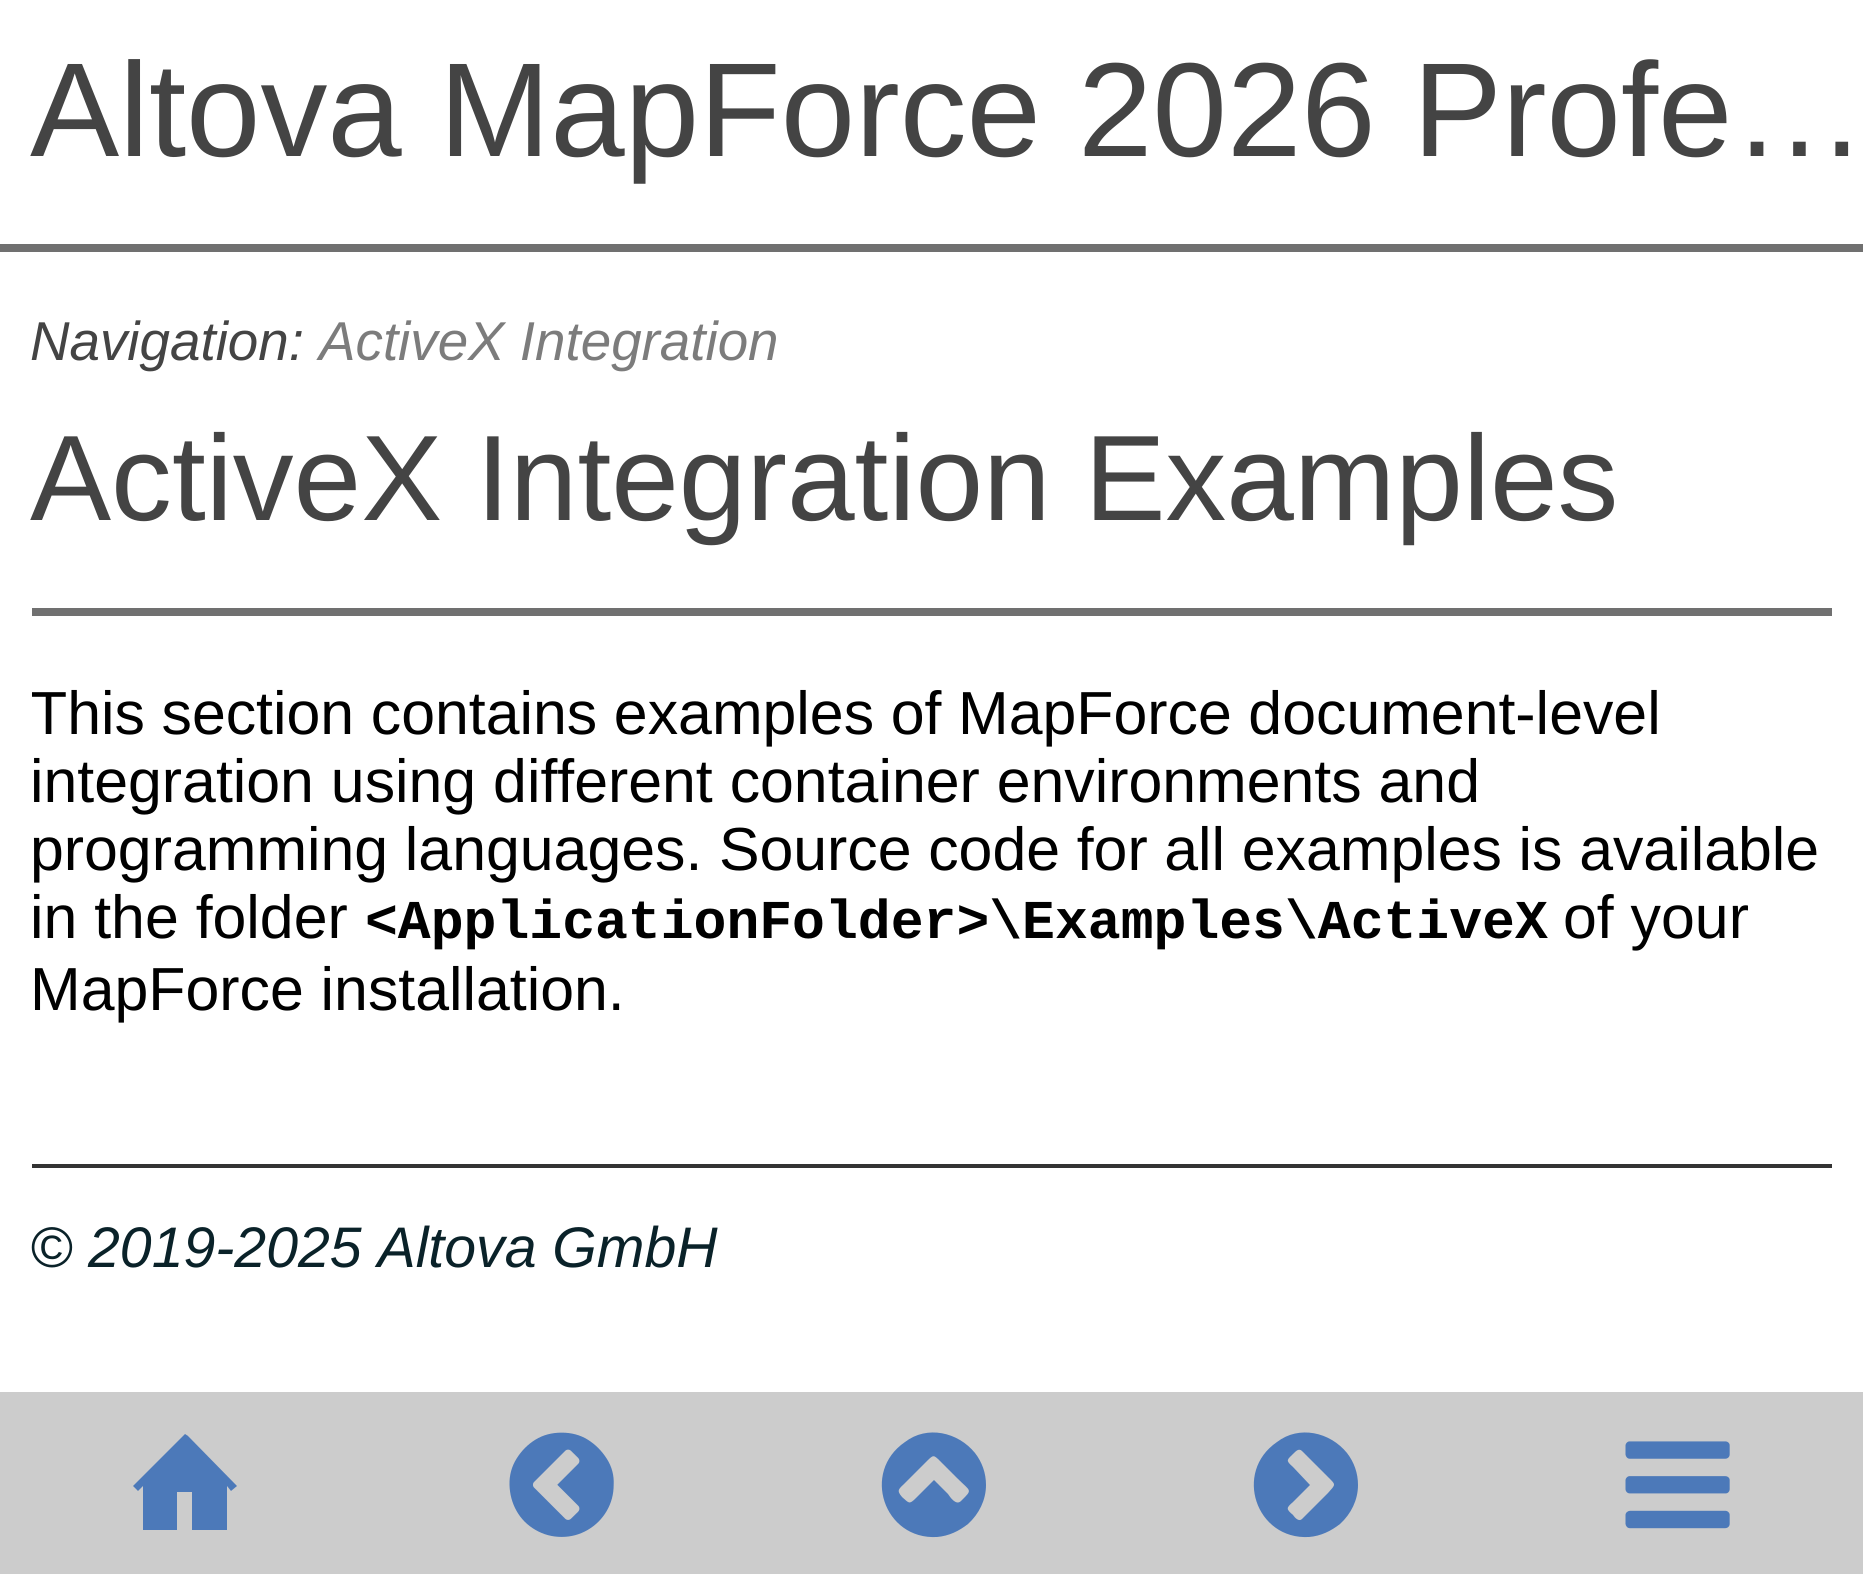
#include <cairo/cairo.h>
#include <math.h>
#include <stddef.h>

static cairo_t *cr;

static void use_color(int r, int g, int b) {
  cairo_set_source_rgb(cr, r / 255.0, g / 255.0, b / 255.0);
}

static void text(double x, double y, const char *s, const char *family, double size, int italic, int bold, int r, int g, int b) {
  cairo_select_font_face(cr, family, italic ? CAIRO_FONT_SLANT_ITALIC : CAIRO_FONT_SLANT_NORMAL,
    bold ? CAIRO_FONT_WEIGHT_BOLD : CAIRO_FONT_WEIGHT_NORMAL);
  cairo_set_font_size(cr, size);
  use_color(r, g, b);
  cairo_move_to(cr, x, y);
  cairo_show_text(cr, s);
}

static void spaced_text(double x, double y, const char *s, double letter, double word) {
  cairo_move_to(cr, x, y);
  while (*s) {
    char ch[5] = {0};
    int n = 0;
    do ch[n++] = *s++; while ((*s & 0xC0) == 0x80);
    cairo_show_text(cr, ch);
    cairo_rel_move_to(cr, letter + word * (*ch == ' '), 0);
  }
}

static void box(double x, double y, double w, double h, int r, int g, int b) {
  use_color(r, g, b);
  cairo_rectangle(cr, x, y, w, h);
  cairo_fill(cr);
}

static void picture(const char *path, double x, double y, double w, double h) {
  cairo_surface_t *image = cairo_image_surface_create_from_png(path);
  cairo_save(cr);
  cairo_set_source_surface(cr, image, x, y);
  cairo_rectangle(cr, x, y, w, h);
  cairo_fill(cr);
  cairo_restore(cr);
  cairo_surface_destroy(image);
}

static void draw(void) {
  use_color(255, 255, 255);
  cairo_paint(cr);
  box(0, 244, 1863, 8, 112, 112, 112);
  box(32, 608, 1800, 8, 112, 112, 112);
  box(32, 1164, 1800, 4, 51, 51, 51);
  box(0, 1392, 1863, 182, 204, 204, 204);
  use_color(76, 121, 185);
  cairo_new_path(cr);
  cairo_move_to(cr, 185, 1434);
  cairo_line_to(cr, 133, 1486);
  cairo_line_to(cr, 138, 1491);
  cairo_line_to(cr, 143, 1486);
  cairo_line_to(cr, 143, 1530);
  cairo_line_to(cr, 177, 1530);
  cairo_line_to(cr, 177, 1492);
  cairo_line_to(cr, 192, 1492);
  cairo_line_to(cr, 192, 1530);
  cairo_line_to(cr, 227, 1530);
  cairo_line_to(cr, 227, 1486);
  cairo_line_to(cr, 231, 1491);
  cairo_line_to(cr, 237, 1486);
  cairo_line_to(cr, 188, 1436);
  cairo_close_path(cr);
  cairo_fill(cr);
  picture("img_01.png", 509, 1432, 105, 105);
  cairo_new_path(cr);
  cairo_move_to(cr, 961, 1501);
  cairo_curve_to(cr, 973, 1489, 971, 1492, 957, 1478);
  cairo_line_to(cr, 942, 1463);
  cairo_curve_to(cr, 933, 1454, 934, 1454, 925, 1463);
  cairo_line_to(cr, 905, 1483);
  cairo_curve_to(cr, 899, 1489, 896, 1490, 902, 1497);
  cairo_curve_to(cr, 909, 1503, 909, 1505, 916, 1498);
  cairo_line_to(cr, 934, 1480);
  cairo_line_to(cr, 948, 1494);
  cairo_curve_to(cr, 950, 1497, 956, 1506, 961, 1501);
  cairo_close_path(cr);
  cairo_move_to(cr, 986, 1485);
  cairo_curve_to(cr, 986, 1500, 979, 1514, 968, 1524);
  cairo_curve_to(cr, 959, 1531, 949, 1536, 937, 1537);
  cairo_curve_to(cr, 884, 1540, 861, 1472, 905, 1442);
  cairo_curve_to(cr, 927, 1425, 958, 1432, 975, 1453);
  cairo_curve_to(cr, 982, 1462, 986, 1473, 986, 1485);
  cairo_close_path(cr);
  cairo_fill(cr);
  cairo_new_path(cr);
  cairo_move_to(cr, 1302, 1519);
  cairo_line_to(cr, 1328, 1493);
  cairo_curve_to(cr, 1336, 1484, 1336, 1485, 1328, 1477);
  cairo_line_to(cr, 1302, 1451);
  cairo_curve_to(cr, 1299, 1448, 1296, 1451, 1294, 1453);
  cairo_curve_to(cr, 1287, 1460, 1285, 1460, 1293, 1467);
  cairo_line_to(cr, 1310, 1485);
  cairo_line_to(cr, 1293, 1502);
  cairo_curve_to(cr, 1286, 1508, 1286, 1509, 1293, 1515);
  cairo_curve_to(cr, 1295, 1518, 1299, 1522, 1302, 1519);
  cairo_close_path(cr);
  cairo_move_to(cr, 1358, 1485);
  cairo_curve_to(cr, 1358, 1500, 1351, 1514, 1340, 1524);
  cairo_curve_to(cr, 1331, 1531, 1321, 1536, 1309, 1537);
  cairo_curve_to(cr, 1256, 1540, 1233, 1472, 1277, 1442);
  cairo_curve_to(cr, 1299, 1425, 1330, 1432, 1347, 1453);
  cairo_curve_to(cr, 1354, 1462, 1358, 1473, 1358, 1485);
  cairo_close_path(cr);
  cairo_fill(cr);
  picture("img_02.png", 1625, 1441, 105, 88);
  text(30, 156, "Altova MapForce 2026 Profe…", "Liberation Sans", 133.75, 0, 0, 68, 68, 68);
  text(30, 360, "Navigation:", "Liberation Sans", 54.75, 1, 0, 68, 68, 68);
  text(319, 360, "ActiveX Integration", "Liberation Sans", 54.75, 1, 0, 124, 124, 124);
  text(30, 520, "ActiveX Integration Examples", "Liberation Sans", 121.6, 0, 0, 68, 68, 68);
  cairo_save(cr);
  cairo_rectangle(cr, 32, 616, 1800, 736);
  cairo_clip(cr);
  cairo_set_font_size(cr, 60.8);
  use_color(0, 0, 0);
  spaced_text(30, 734, "This section contains examples of MapForce document-level", 0, -0.25);
  cairo_restore(cr);
  text(30, 802, "integration using different container environments and", "Liberation Sans", 60.8, 0, 0, 0, 0, 0);
  spaced_text(30, 870, "programming languages. Source code for all examples is available", 0, -0.25);
  text(30, 938, "in the folder", "Liberation Sans", 60.8, 0, 0, 0, 0, 0);
  text(365, 938, "<ApplicationFolder>\\Examples\\ActiveX", "Liberation Mono", 54.75, 0, 1, 0, 0, 0);
  text(1563, 938, "of your", "Liberation Sans", 60.8, 0, 0, 0, 0, 0);
  text(30, 1010, "MapForce installation.", "Liberation Sans", 60.8, 0, 0, 0, 0, 0);
  text(30, 1267, "© 2019-2025 Altova GmbH", "Liberation Sans", 57.2, 1, 0, 10, 34, 41);
}

int main(void) {
  cairo_surface_t *surface = cairo_image_surface_create(CAIRO_FORMAT_RGB24, 1863, 1574);
  cr = cairo_create(surface);
  cairo_font_options_t *options = cairo_font_options_create();
  cairo_font_options_set_hint_metrics(options, CAIRO_HINT_METRICS_OFF);
  cairo_font_options_set_hint_style(options, CAIRO_HINT_STYLE_NONE);
  cairo_set_font_options(cr, options);
  cairo_set_miter_limit(cr, 4);
  draw();
  cairo_surface_write_to_png(surface, "out.png");
  cairo_font_options_destroy(options);
  cairo_destroy(cr);
  cairo_surface_destroy(surface);
  return 0;
}
